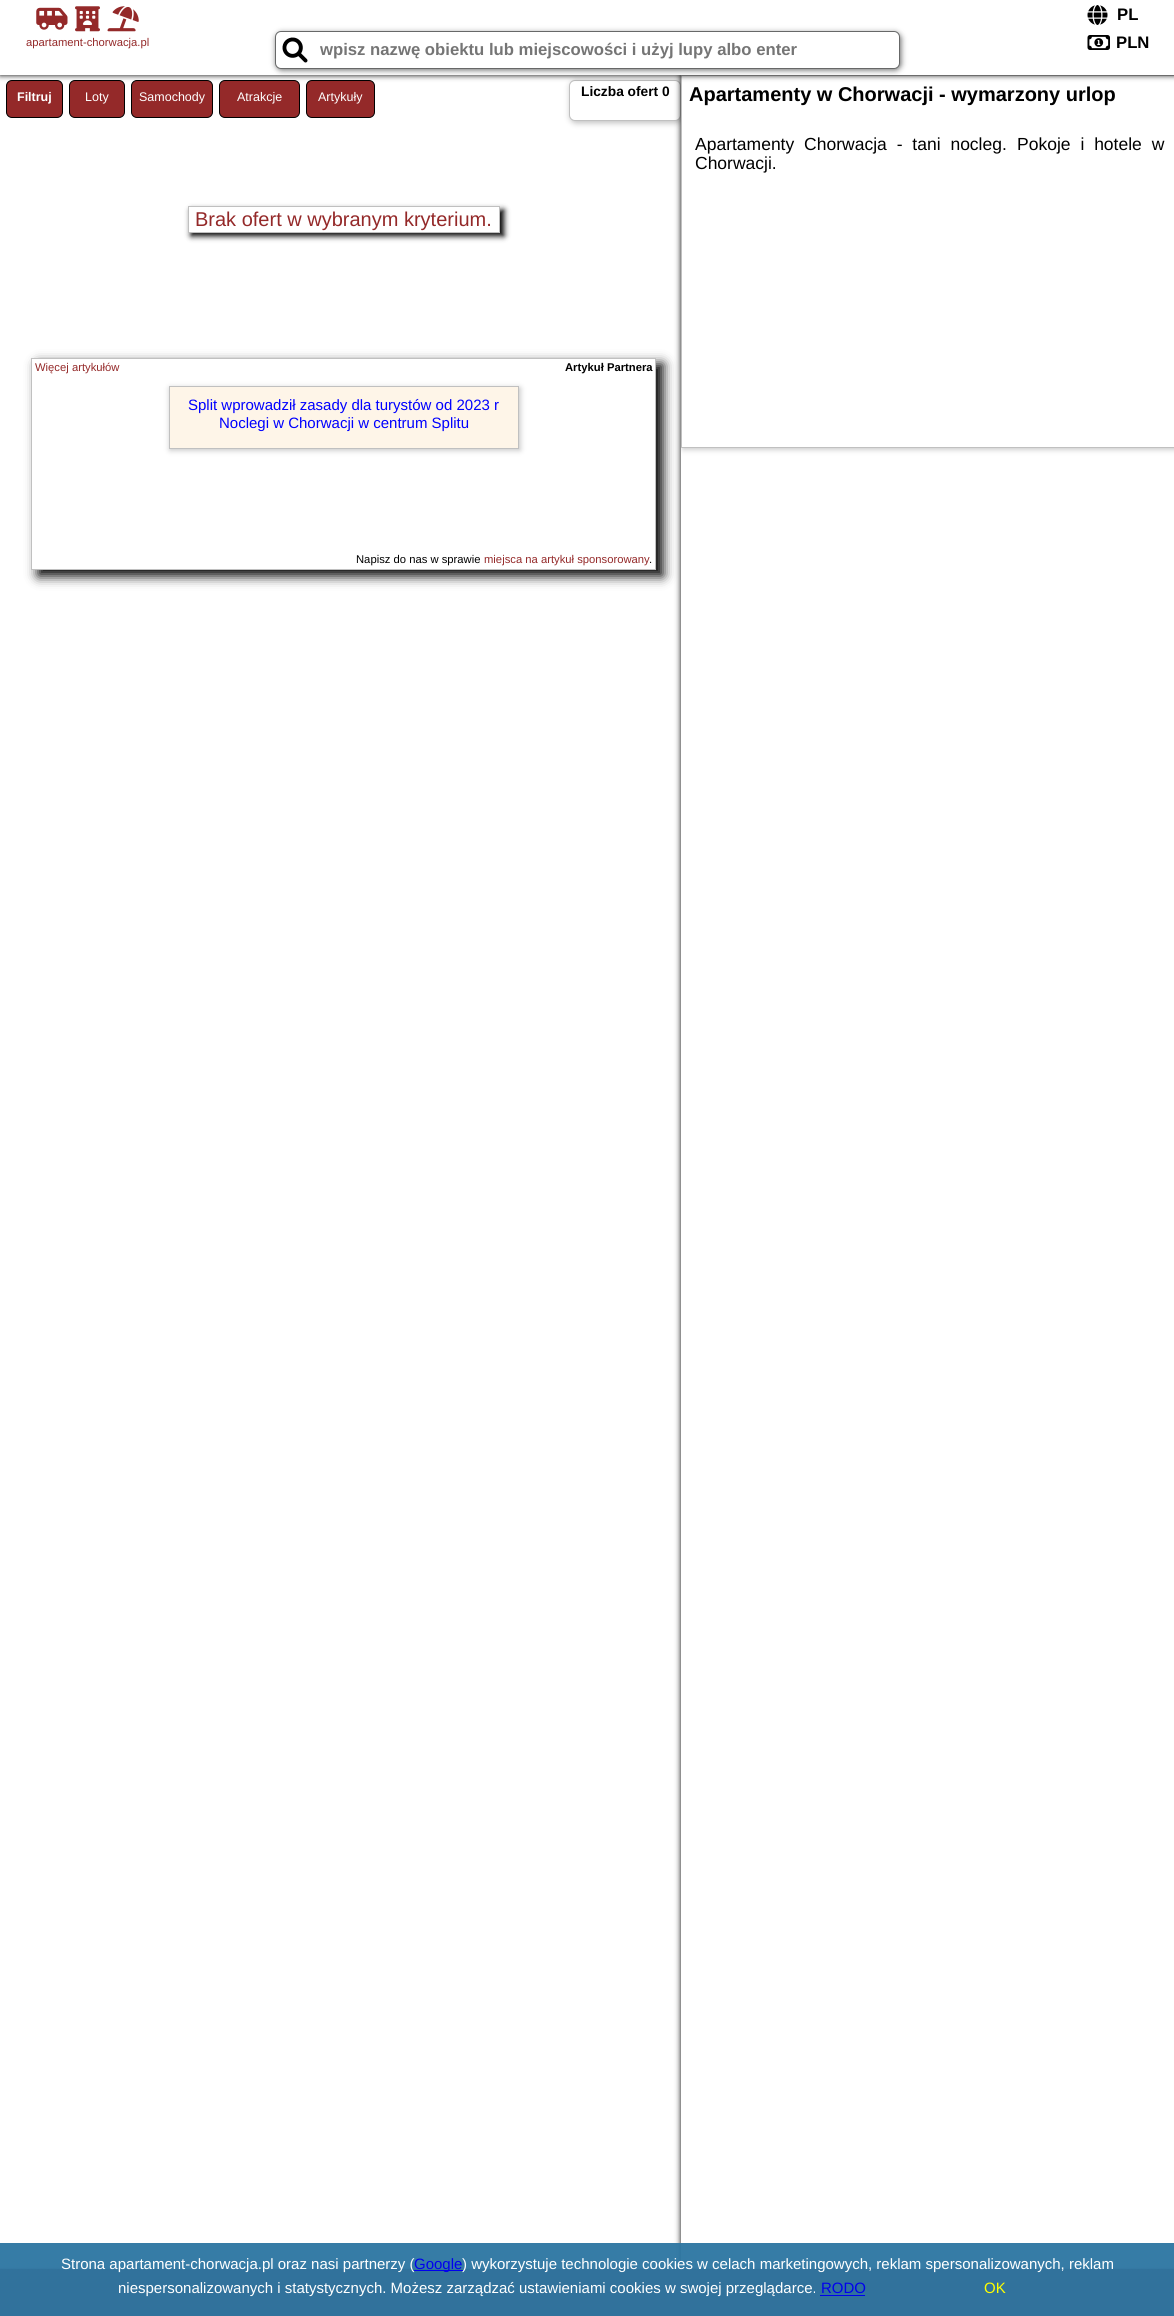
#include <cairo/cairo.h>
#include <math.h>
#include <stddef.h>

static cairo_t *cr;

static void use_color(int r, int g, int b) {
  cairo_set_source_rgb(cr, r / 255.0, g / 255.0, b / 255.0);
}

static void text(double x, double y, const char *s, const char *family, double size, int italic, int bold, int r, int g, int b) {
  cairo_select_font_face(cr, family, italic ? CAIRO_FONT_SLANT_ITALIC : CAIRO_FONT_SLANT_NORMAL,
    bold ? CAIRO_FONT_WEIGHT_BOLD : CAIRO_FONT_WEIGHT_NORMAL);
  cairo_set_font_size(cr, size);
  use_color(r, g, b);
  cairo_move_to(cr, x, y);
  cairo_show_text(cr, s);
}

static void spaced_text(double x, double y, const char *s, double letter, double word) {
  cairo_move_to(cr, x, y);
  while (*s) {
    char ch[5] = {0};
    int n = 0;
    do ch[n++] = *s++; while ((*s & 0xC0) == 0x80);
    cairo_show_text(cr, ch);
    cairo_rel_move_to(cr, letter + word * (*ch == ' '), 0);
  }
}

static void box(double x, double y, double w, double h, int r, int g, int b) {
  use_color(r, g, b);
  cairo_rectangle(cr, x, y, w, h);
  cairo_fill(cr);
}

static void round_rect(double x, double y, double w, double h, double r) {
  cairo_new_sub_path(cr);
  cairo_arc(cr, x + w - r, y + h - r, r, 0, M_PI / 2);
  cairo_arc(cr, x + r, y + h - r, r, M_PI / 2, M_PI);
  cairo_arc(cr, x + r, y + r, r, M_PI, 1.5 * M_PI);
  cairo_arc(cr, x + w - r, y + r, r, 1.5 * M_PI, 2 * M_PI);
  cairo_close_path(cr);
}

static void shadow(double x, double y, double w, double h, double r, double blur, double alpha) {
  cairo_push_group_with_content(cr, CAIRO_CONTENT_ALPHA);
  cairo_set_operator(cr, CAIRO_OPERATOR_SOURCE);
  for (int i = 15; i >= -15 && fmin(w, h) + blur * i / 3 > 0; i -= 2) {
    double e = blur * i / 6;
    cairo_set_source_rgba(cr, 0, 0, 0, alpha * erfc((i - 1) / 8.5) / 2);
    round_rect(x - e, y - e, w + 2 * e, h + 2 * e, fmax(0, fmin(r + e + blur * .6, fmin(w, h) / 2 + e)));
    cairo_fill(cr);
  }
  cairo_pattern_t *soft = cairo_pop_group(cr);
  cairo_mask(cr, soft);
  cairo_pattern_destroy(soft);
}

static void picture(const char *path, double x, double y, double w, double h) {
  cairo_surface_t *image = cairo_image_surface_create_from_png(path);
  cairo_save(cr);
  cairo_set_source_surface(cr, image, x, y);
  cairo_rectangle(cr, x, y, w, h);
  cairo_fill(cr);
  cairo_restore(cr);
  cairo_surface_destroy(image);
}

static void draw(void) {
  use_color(255, 255, 255);
  cairo_paint(cr);
  use_color(148, 41, 41);
  round_rect(6.5, 80.5, 56, 37, 5.5);
  cairo_fill_preserve(cr);
  use_color(0, 0, 0);
  cairo_set_line_width(cr, 1);
  cairo_stroke(cr);
  use_color(148, 41, 41);
  round_rect(69.5, 80.5, 55, 37, 5.5);
  cairo_fill_preserve(cr);
  use_color(0, 0, 0);
  cairo_stroke(cr);
  use_color(148, 41, 41);
  round_rect(131.5, 80.5, 81, 37, 5.5);
  cairo_fill_preserve(cr);
  use_color(0, 0, 0);
  cairo_stroke(cr);
  use_color(148, 41, 41);
  round_rect(219.5, 80.5, 80, 37, 5.5);
  cairo_fill_preserve(cr);
  use_color(0, 0, 0);
  cairo_stroke(cr);
  use_color(148, 41, 41);
  round_rect(306.5, 80.5, 68, 37, 5.5);
  cairo_fill_preserve(cr);
  use_color(0, 0, 0);
  cairo_stroke(cr);
  use_color(192, 192, 192);
  shadow(570, 81, 113, 42, 6, 3, 1);
  use_color(255, 255, 255);
  round_rect(569.5, 80.5, 111, 40, 5.5);
  cairo_fill_preserve(cr);
  use_color(192, 192, 192);
  cairo_stroke(cr);
  use_color(0, 0, 0);
  shadow(38, 364, 625, 212, 0, 6, 1);
  cairo_save(cr);
  cairo_set_fill_rule(cr, CAIRO_FILL_RULE_EVEN_ODD);
  cairo_new_path(cr);
  cairo_move_to(cr, 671, 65);
  cairo_line_to(cr, 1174, 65);
  cairo_line_to(cr, 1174, 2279);
  cairo_line_to(cr, 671, 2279);
  cairo_close_path(cr);
  cairo_move_to(cr, 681, 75);
  cairo_line_to(cr, 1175, 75);
  cairo_line_to(cr, 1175, 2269);
  cairo_line_to(cr, 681, 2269);
  cairo_close_path(cr);
  cairo_clip(cr);
  shadow(681, 75, 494, 2194, 0, 3, 1);
  cairo_restore(cr);
  cairo_save(cr);
  cairo_rectangle(cr, 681, 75, 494, 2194);
  cairo_clip(cr);
  use_color(192, 192, 192);
  shadow(683, 76, 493, 373, 0, 3, 1);
  cairo_restore(cr);
  use_color(255, 255, 255);
  cairo_rectangle(cr, 681.5, 75.5, 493, 372);
  cairo_fill_preserve(cr);
  use_color(192, 192, 192);
  cairo_stroke(cr);
  use_color(0, 0, 0);
  shadow(0, 0, 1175, 75, 0, 3, 1);
  box(0, 0, 1174, 75, 255, 255, 255);
  picture("img_01.png", 1087, 5, 21, 20);
  picture("img_02.png", 36, 7, 32, 23);
  picture("img_03.png", 75, 6, 25, 26);
  picture("img_04.png", 107, 6, 32, 26);
  use_color(103, 104, 104);
  shadow(276, 33, 625, 37, 6, 3, 1);
  use_color(255, 255, 255);
  round_rect(275.5, 31.5, 624, 37, 5.5);
  cairo_fill_preserve(cr);
  use_color(103, 104, 104);
  cairo_stroke(cr);
  picture("img_05.png", 282, 37, 26, 26);
  picture("img_06.png", 1087, 35, 23, 15);
  use_color(0, 0, 0);
  shadow(191, 210, 313, 26, 0, 3, 1);
  use_color(255, 255, 255);
  cairo_rectangle(cr, 188.5, 206.5, 311, 26);
  cairo_fill_preserve(cr);
  use_color(192, 192, 192);
  cairo_stroke(cr);
  use_color(255, 255, 255);
  cairo_rectangle(cr, 31.5, 358.5, 624, 211);
  cairo_fill_preserve(cr);
  use_color(192, 192, 192);
  cairo_stroke(cr);
  cairo_save(cr);
  cairo_set_fill_rule(cr, CAIRO_FILL_RULE_EVEN_ODD);
  cairo_new_path(cr);
  cairo_move_to(cr, 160, 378);
  cairo_line_to(cr, 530, 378);
  cairo_line_to(cr, 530, 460);
  cairo_line_to(cr, 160, 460);
  cairo_close_path(cr);
  cairo_move_to(cr, 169, 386);
  cairo_line_to(cr, 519, 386);
  cairo_line_to(cr, 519, 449);
  cairo_line_to(cr, 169, 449);
  cairo_close_path(cr);
  cairo_clip(cr);
  use_color(192, 192, 192);
  shadow(170, 388, 350, 62, 0, 3, 1);
  cairo_restore(cr);
  cairo_set_source_rgba(cr, 0.961, 0.612, 0.102, 0.1);
  cairo_rectangle(cr, 169.5, 386.5, 349, 62);
  cairo_fill_preserve(cr);
  use_color(192, 192, 192);
  cairo_stroke(cr);
  use_color(148, 41, 41);
  shadow(0, 2269, 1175, 47, 0, 1, 1);
  box(0, 2269, 1174, 47, 148, 41, 41);
  cairo_set_source_rgba(cr, 0.176, 0.463, 0.635, 0.95);
  cairo_rectangle(cr, 0, 2243, 1174, 73);
  cairo_fill(cr);
  box(414, 2270, 49, 1, 0, 0, 238);
  box(820, 2295, 45, 1, 0, 0, 238);
  text(1117, 20, "PL", "Liberation Sans", 16.7, 0, 1, 0, 0, 0);
  text(26, 46, "apartament-chorwacja.pl", "Liberation Sans", 11.25, 0, 0, 148, 41, 41);
  text(320, 55, "wpisz nazwę obiektu lub miejscowości i użyj lupy albo enter", "Liberation Sans", 16.7, 0, 1, 117, 117, 117);
  text(1116, 48, "PLN", "Liberation Sans", 16.7, 0, 1, 0, 0, 0);
  text(17, 101, "Filtruj", "Liberation Sans", 12.5, 0, 1, 255, 255, 255);
  text(85, 101, "Loty", "Liberation Sans", 12.5, 0, 0, 255, 255, 255);
  text(139, 101, "Samochody", "Liberation Sans", 12.5, 0, 0, 255, 255, 255);
  text(237, 101, "Atrakcje", "Liberation Sans", 12.5, 0, 0, 255, 255, 255);
  text(318, 101, "Artykuły", "Liberation Sans", 12.5, 0, 0, 255, 255, 255);
  text(581, 96, "Liczba ofert 0", "Liberation Sans", 13.75, 0, 1, 0, 0, 0);
  text(195, 226, "Brak ofert w wybranym kryterium.", "Liberation Sans", 20, 0, 0, 148, 41, 41);
  text(35, 371, "Więcej artykułów", "Liberation Sans", 11.25, 0, 0, 148, 41, 41);
  text(565, 371, "Artykuł Partnera", "Liberation Sans", 11.25, 0, 1, 0, 0, 0);
  text(188, 410, "Split wprowadził zasady dla turystów od 2023 r", "Liberation Sans", 15, 0, 0, 0, 0, 255);
  text(219, 428, "Noclegi w Chorwacji w centrum Splitu", "Liberation Sans", 15, 0, 0, 0, 0, 255);
  text(356, 563, "Napisz do nas w sprawie", "Liberation Sans", 11.25, 0, 0, 0, 0, 0);
  text(484, 563, "miejsca na artykuł sponsorowany", "Liberation Sans", 11.25, 0, 0, 148, 41, 41);
  text(649, 563, ".", "Liberation Sans", 11.25, 0, 0, 0, 0, 0);
  text(689, 101, "Apartamenty w Chorwacji - wymarzony urlop", "Liberation Sans", 20, 0, 1, 0, 0, 0);
  cairo_select_font_face(cr, "Liberation Sans", CAIRO_FONT_SLANT_NORMAL, CAIRO_FONT_WEIGHT_NORMAL);
  cairo_set_font_size(cr, 17.5);
  spaced_text(695, 150, "Apartamenty Chorwacja - tani nocleg.", 0, 5);
  spaced_text(1017, 150, "Pokoje i hotele w", 0, 5);
  text(695, 169, "Chorwacji.", "Liberation Sans", 17.5, 0, 0, 0, 0, 0);
  text(61, 2269, "Strona apartament-chorwacja.pl oraz nasi partnerzy (", "Liberation Sans", 15, 0, 0, 255, 255, 255);
  text(414, 2269, "Google", "Liberation Sans", 15, 0, 0, 0, 0, 238);
  text(462, 2269, ") wykorzystuje technologie cookies w celach marketingowych, reklam spersonalizowanych, reklam", "Liberation Sans", 15, 0, 0, 255, 255, 255);
  text(118, 2293, "niespersonalizowanych i statystycznych. Możesz zarządzać ustawieniami cookies w swojej przeglądarce.", "Liberation Sans", 15, 0, 0, 255, 255, 255);
  text(821, 2293, "RODO", "Liberation Sans", 15, 0, 0, 0, 0, 238);
  text(984, 2293, "OK", "Liberation Sans", 15, 0, 0, 255, 255, 0);
}

int main(void) {
  cairo_surface_t *surface = cairo_image_surface_create(CAIRO_FORMAT_RGB24, 1174, 2316);
  cr = cairo_create(surface);
  cairo_font_options_t *options = cairo_font_options_create();
  cairo_font_options_set_hint_metrics(options, CAIRO_HINT_METRICS_OFF);
  cairo_font_options_set_hint_style(options, CAIRO_HINT_STYLE_NONE);
  cairo_set_font_options(cr, options);
  cairo_set_miter_limit(cr, 4);
  draw();
  cairo_surface_write_to_png(surface, "out.png");
  cairo_font_options_destroy(options);
  cairo_destroy(cr);
  cairo_surface_destroy(surface);
  return 0;
}
